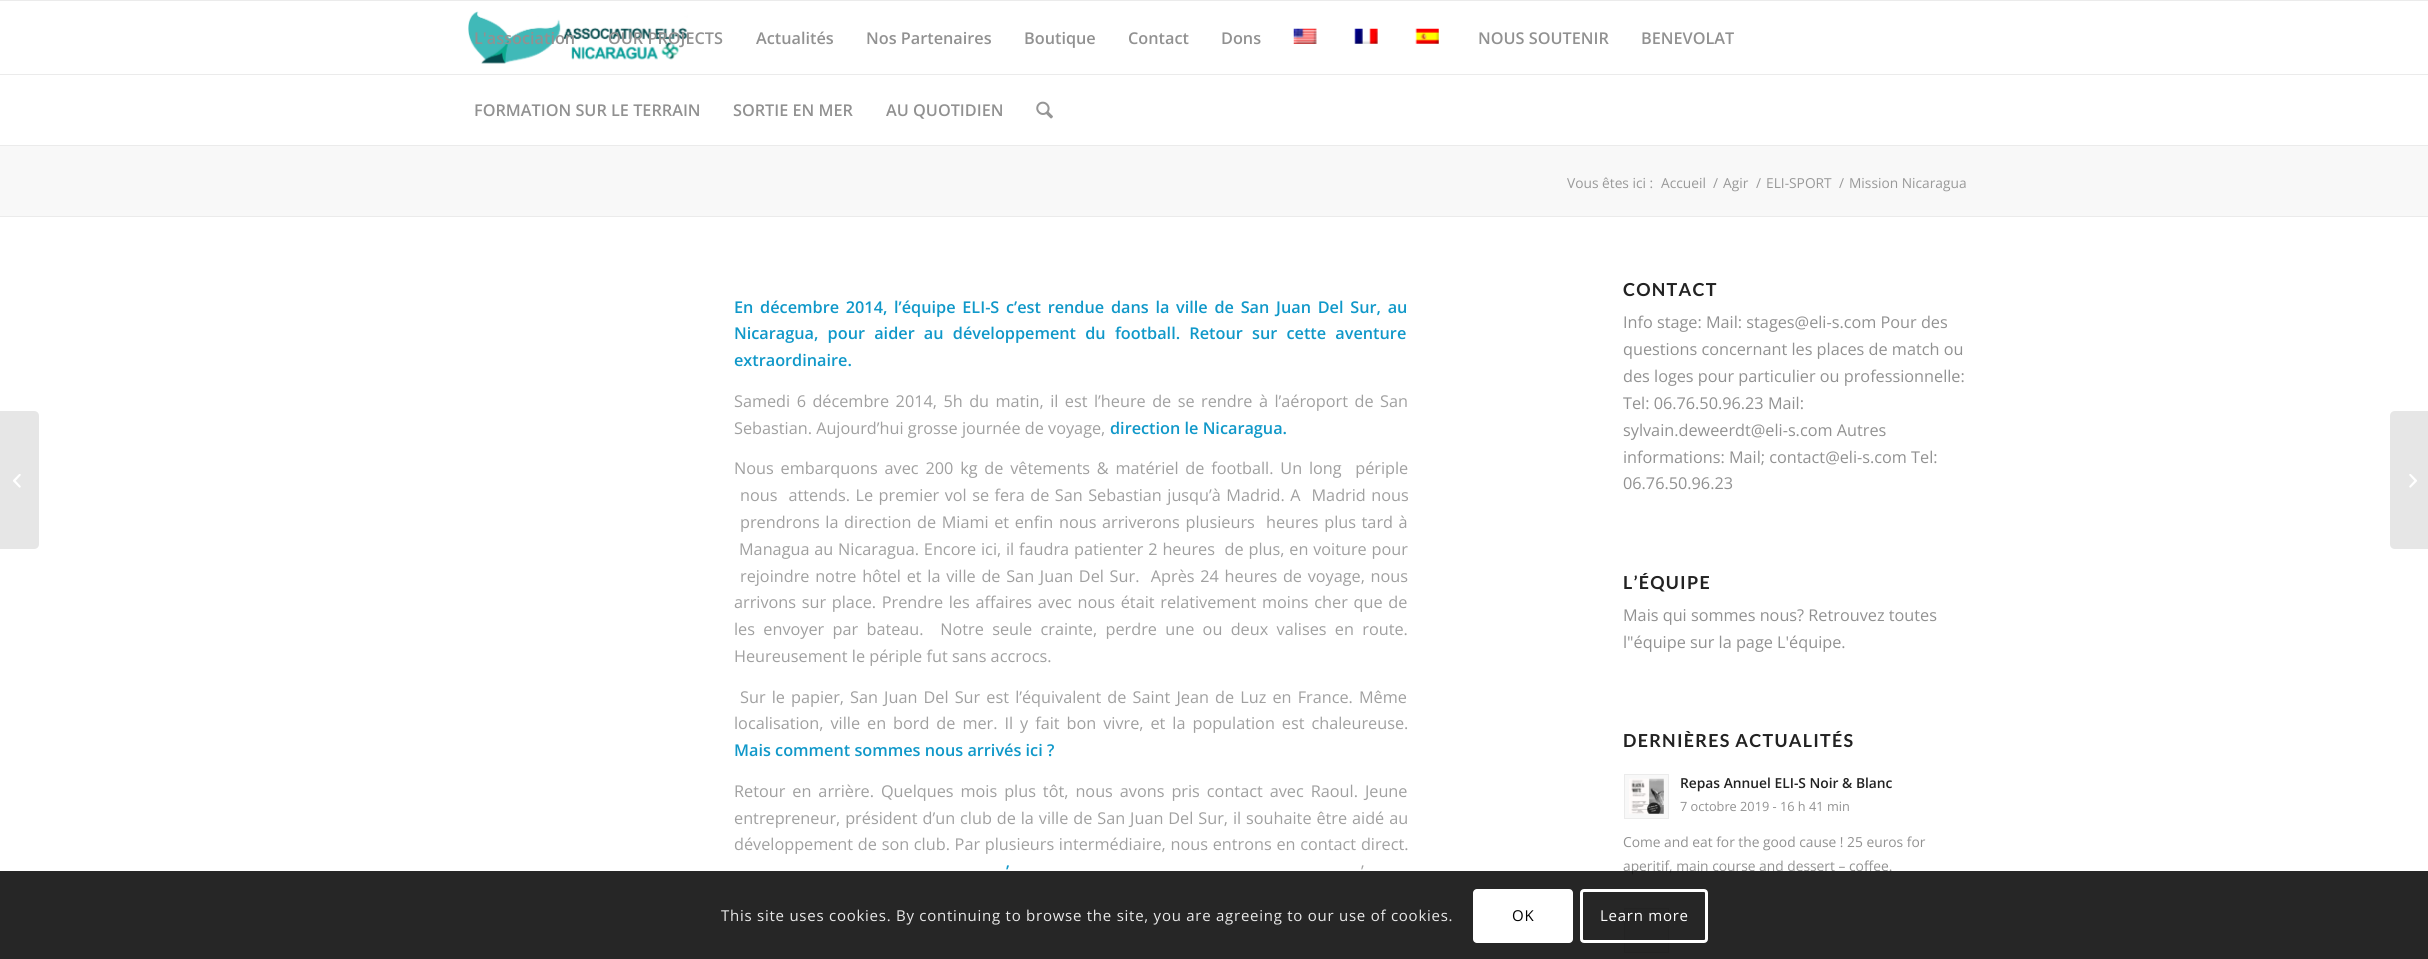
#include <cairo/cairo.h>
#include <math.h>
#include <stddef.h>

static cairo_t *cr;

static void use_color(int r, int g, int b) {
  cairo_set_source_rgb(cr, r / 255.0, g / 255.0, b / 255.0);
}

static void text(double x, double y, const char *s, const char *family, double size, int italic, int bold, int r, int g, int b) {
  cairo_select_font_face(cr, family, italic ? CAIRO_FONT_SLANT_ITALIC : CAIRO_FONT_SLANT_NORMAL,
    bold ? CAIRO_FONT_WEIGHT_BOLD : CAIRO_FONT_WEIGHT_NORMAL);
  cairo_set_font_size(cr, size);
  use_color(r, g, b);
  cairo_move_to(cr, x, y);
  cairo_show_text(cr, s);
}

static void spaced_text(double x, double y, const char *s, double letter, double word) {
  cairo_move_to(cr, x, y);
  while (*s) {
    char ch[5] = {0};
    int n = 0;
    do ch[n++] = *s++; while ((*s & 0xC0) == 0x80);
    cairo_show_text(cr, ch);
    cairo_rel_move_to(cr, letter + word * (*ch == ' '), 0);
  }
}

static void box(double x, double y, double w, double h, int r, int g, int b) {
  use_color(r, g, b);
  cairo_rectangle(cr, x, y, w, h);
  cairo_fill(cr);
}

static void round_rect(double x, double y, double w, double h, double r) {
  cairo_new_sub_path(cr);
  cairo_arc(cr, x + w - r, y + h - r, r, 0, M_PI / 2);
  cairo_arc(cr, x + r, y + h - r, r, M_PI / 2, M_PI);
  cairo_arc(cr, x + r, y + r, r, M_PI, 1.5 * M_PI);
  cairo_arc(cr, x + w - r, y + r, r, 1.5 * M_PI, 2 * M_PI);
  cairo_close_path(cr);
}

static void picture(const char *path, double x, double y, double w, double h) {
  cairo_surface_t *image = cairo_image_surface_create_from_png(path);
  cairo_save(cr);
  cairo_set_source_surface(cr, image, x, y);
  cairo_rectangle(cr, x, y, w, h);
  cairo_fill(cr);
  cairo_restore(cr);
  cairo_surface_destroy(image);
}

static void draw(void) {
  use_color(255, 255, 255);
  cairo_paint(cr);
  box(0, 0, 2428, 1, 235, 235, 235);
  box(0, 74, 2428, 1, 235, 235, 235);
  picture("img_01.png", 468, 11, 220, 53);
  picture("img_02.png", 1293, 28, 24, 16);
  picture("img_03.png", 1354, 28, 24, 16);
  picture("img_04.png", 1415, 28, 24, 16);
  picture("img_05.png", 1036, 101, 17, 18);
  use_color(230, 230, 230);
  cairo_new_path(cr);
  cairo_move_to(cr, 0, 411);
  cairo_line_to(cr, 34, 411);
  cairo_curve_to(cr, 37, 411, 39, 413, 39, 416);
  cairo_line_to(cr, 39, 544);
  cairo_curve_to(cr, 39, 547, 37, 549, 34, 549);
  cairo_line_to(cr, 0, 549);
  cairo_close_path(cr);
  cairo_fill(cr);
  picture("img_06.png", 13, 474, 8, 14);
  box(0, 146, 2428, 70, 248, 248, 248);
  box(0, 145, 2428, 1, 235, 235, 235);
  box(0, 216, 2428, 1, 235, 235, 235);
  use_color(248, 248, 248);
  cairo_rectangle(cr, 1624.5, 774.5, 44, 44);
  cairo_fill_preserve(cr);
  use_color(235, 235, 235);
  cairo_set_line_width(cr, 1);
  cairo_stroke(cr);
  picture("img_07.png", 1629, 778, 35, 36);
  use_color(248, 248, 248);
  cairo_rectangle(cr, 1624.5, 908.5, 44, 44);
  cairo_fill_preserve(cr);
  use_color(235, 235, 235);
  cairo_stroke(cr);
  use_color(230, 230, 230);
  cairo_new_path(cr);
  cairo_move_to(cr, 2395, 411);
  cairo_line_to(cr, 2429, 411);
  cairo_line_to(cr, 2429, 549);
  cairo_line_to(cr, 2395, 549);
  cairo_curve_to(cr, 2392, 549, 2390, 547, 2390, 544);
  cairo_line_to(cr, 2390, 416);
  cairo_curve_to(cr, 2390, 413, 2392, 411, 2395, 411);
  cairo_close_path(cr);
  cairo_fill(cr);
  picture("img_08.png", 2409, 474, 8, 14);
  text(474, 44, "L'association", "Open Sans SemiBold", 16.25, 0, 0, 145, 145, 145);
  text(608, 44, "OUR PROJECTS", "Open Sans SemiBold", 16.25, 0, 0, 145, 145, 145);
  text(756, 44, "Actualités", "Open Sans SemiBold", 16.25, 0, 0, 145, 145, 145);
  text(866, 44, "Nos Partenaires", "Open Sans SemiBold", 16.25, 0, 0, 145, 145, 145);
  text(1024, 44, "Boutique", "Open Sans SemiBold", 16.25, 0, 0, 145, 145, 145);
  text(1128, 44, "Contact", "Open Sans SemiBold", 16.25, 0, 0, 145, 145, 145);
  text(1221, 44, "Dons", "Open Sans SemiBold", 16.25, 0, 0, 145, 145, 145);
  text(1478, 44, "NOUS SOUTENIR", "Open Sans SemiBold", 16.25, 0, 0, 145, 145, 145);
  text(1641, 44, "BENEVOLAT", "Open Sans SemiBold", 16.25, 0, 0, 145, 145, 145);
  text(474, 116, "FORMATION SUR LE TERRAIN", "Open Sans SemiBold", 16.25, 0, 0, 145, 145, 145);
  text(733, 116, "SORTIE EN MER", "Open Sans SemiBold", 16.25, 0, 0, 145, 145, 145);
  text(886, 116, "AU QUOTIDIEN", "Open Sans SemiBold", 16.25, 0, 0, 145, 145, 145);
  text(1567, 188, "Vous êtes ici :", "Open Sans", 13.75, 0, 0, 153, 153, 153);
  text(1661, 188, "Accueil", "Open Sans", 13.75, 0, 0, 153, 153, 153);
  text(1713, 188, "/", "Open Sans", 13.75, 0, 0, 153, 153, 153);
  text(1723, 188, "Agir", "Open Sans", 13.75, 0, 0, 153, 153, 153);
  text(1756, 188, "/", "Open Sans", 13.75, 0, 0, 153, 153, 153);
  text(1766, 188, "ELI-SPORT", "Open Sans", 13.75, 0, 0, 153, 153, 153);
  text(1839, 188, "/", "Open Sans", 13.75, 0, 0, 153, 153, 153);
  text(1849, 188, "Mission Nicaragua", "Open Sans", 13.75, 0, 0, 153, 153, 153);
  cairo_select_font_face(cr, "Open Sans SemiBold", CAIRO_FONT_SLANT_NORMAL, CAIRO_FONT_WEIGHT_NORMAL);
  cairo_set_font_size(cr, 16.25);
  use_color(16, 152, 201);
  spaced_text(734, 313, "En décembre 2014, l’équipe ELI-S c’est rendue dans la ville de San Juan Del Sur, au", 0, 2.5);
  spaced_text(734, 339, "Nicaragua, pour aider au développement du football. Retour sur cette aventure", 0, 5);
  text(734, 366, "extraordinaire.", "Open Sans SemiBold", 16.25, 0, 0, 16, 152, 201);
  cairo_select_font_face(cr, "Open Sans", CAIRO_FONT_SLANT_NORMAL, CAIRO_FONT_WEIGHT_NORMAL);
  use_color(160, 160, 160);
  spaced_text(734, 407, "Samedi 6 décembre 2014, 5h du matin, il est l’heure de se rendre à l’aéroport de San", 0, 2.25);
  text(734, 434, "Sebastian. Aujourd’hui grosse journée de voyage,", "Open Sans", 16.25, 0, 0, 160, 160, 160);
  text(1110, 434, "direction le Nicaragua.", "Open Sans SemiBold", 16.25, 0, 0, 16, 152, 201);
  cairo_select_font_face(cr, "Open Sans", CAIRO_FONT_SLANT_NORMAL, CAIRO_FONT_WEIGHT_NORMAL);
  use_color(160, 160, 160);
  spaced_text(734, 474, "Nous embarquons avec 200 kg de vêtements & matériel de football. Un long  périple", 0, 2.6);
  spaced_text(740, 501, "nous  attends. Le premier vol se fera de San Sebastian jusqu’à Madrid. A  Madrid nous", 0, 1.25);
  spaced_text(740, 528, "prendrons la direction de Miami et enfin nous arriverons plusieurs  heures plus tard à", 0, 1.4);
  spaced_text(739, 555, "Managua au Nicaragua. Encore ici, il faudra patienter 2 heures  de plus, en voiture pour", 0, 0.6);
  spaced_text(740, 582, "rejoindre notre hôtel et la ville de San Juan Del Sur.  Après 24 heures de voyage, nous", 0, 1.5);
  spaced_text(734, 608, "arrivons sur place. Prendre les affaires avec nous était relativement moins cher que de", 0, 1.5);
  spaced_text(734, 635, "les envoyer par bateau.  Notre seule crainte, perdre une ou deux valises en route.", 0, 4.1);
  text(734, 662, "Heureusement le périple fut sans accrocs.", "Open Sans", 16.25, 0, 0, 160, 160, 160);
  spaced_text(740, 703, "Sur le papier, San Juan Del Sur est l’équivalent de Saint Jean de Luz en France. Même", 0, 1.9);
  spaced_text(734, 729, "localisation, ville en bord de mer. Il y fait bon vivre, et la population est chaleureuse.", 0, 2.75);
  text(734, 756, "Mais comment sommes nous arrivés ici ?", "Open Sans SemiBold", 16.25, 0, 0, 16, 152, 201);
  cairo_select_font_face(cr, "Open Sans", CAIRO_FONT_SLANT_NORMAL, CAIRO_FONT_WEIGHT_NORMAL);
  use_color(160, 160, 160);
  spaced_text(734, 797, "Retour en arrière. Quelques mois plus tôt, nous avons pris contact avec Raoul. Jeune", 0, 2.75);
  spaced_text(734, 824, "entrepreneur, président d’un club de la ville de San Juan Del Sur, il souhaite être aidé au", 0, 0.7);
  spaced_text(734, 850, "développement de son club. Par plusieurs intermédiaire, nous entrons en contact direct.", 0, 0.5);
  cairo_select_font_face(cr, "Open Sans SemiBold", CAIRO_FONT_SLANT_NORMAL, CAIRO_FONT_WEIGHT_NORMAL);
  use_color(16, 152, 201);
  spaced_text(1006, 877, "’", 0, 4);
  cairo_select_font_face(cr, "Open Sans", CAIRO_FONT_SLANT_NORMAL, CAIRO_FONT_WEIGHT_NORMAL);
  use_color(160, 160, 160);
  spaced_text(1361, 877, "’", 0, 4);
  cairo_select_font_face(cr, "Lato", CAIRO_FONT_SLANT_NORMAL, CAIRO_FONT_WEIGHT_BOLD);
  cairo_set_font_size(cr, 17.9);
  use_color(34, 34, 34);
  spaced_text(1623, 296, "CONTACT", 1.25, 0);
  text(1623, 328, "Info stage: Mail: stages@eli-s.com Pour des", "Open Sans", 16.25, 0, 0, 145, 145, 145);
  text(1623, 355, "questions concernant les places de match ou", "Open Sans", 16.25, 0, 0, 145, 145, 145);
  text(1623, 382, "des loges pour particulier ou professionnelle:", "Open Sans", 16.25, 0, 0, 145, 145, 145);
  text(1623, 409, "Tel: 06.76.50.96.23 Mail:", "Open Sans", 16.25, 0, 0, 145, 145, 145);
  text(1623, 436, "sylvain.deweerdt@eli-s.com Autres", "Open Sans", 16.25, 0, 0, 145, 145, 145);
  text(1623, 463, "informations: Mail; contact@eli-s.com Tel:", "Open Sans", 16.25, 0, 0, 145, 145, 145);
  text(1623, 489, "06.76.50.96.23", "Open Sans", 16.25, 0, 0, 145, 145, 145);
  cairo_select_font_face(cr, "Lato", CAIRO_FONT_SLANT_NORMAL, CAIRO_FONT_WEIGHT_BOLD);
  cairo_set_font_size(cr, 17.9);
  use_color(34, 34, 34);
  spaced_text(1623, 589, "L’ÉQUIPE", 1.25, 0);
  text(1623, 621, "Mais qui sommes nous? Retrouvez toutes", "Open Sans", 16.25, 0, 0, 145, 145, 145);
  text(1623, 648, "l\"équipe sur la page L'équipe.", "Open Sans", 16.25, 0, 0, 145, 145, 145);
  cairo_select_font_face(cr, "Lato", CAIRO_FONT_SLANT_NORMAL, CAIRO_FONT_WEIGHT_BOLD);
  cairo_set_font_size(cr, 17.9);
  use_color(34, 34, 34);
  spaced_text(1623, 747, "DERNIÈRES ACTUALITÉS", 1.25, 0);
  text(1680, 788, "Repas Annuel ELI-S Noir & Blanc", "Open Sans SemiBold", 13.8, 0, 0, 34, 34, 34);
  text(1680, 811, "7 octobre 2019 - 16 h 41 min", "Open Sans", 12.75, 0, 0, 145, 145, 145);
  text(1623, 847, "Come and eat for the good cause ! 25 euros for", "Open Sans", 13.8, 0, 0, 145, 145, 145);
  text(1623, 871, "aperitif, main course and dessert – coffee.", "Open Sans", 13.8, 0, 0, 145, 145, 145);
  cairo_set_source_rgba(cr, 0, 0, 0, 0.85);
  cairo_rectangle(cr, 0, 871, 2428, 88);
  cairo_fill(cr);
  cairo_set_font_size(cr, 15);
  use_color(233, 233, 233);
  spaced_text(721, 921, "This site uses cookies. By continuing to browse the site, you are agreeing to our use of cookies.", 0.75, 0);
  use_color(255, 255, 255);
  round_rect(1473, 889, 100, 54, 4);
  cairo_fill(cr);
  use_color(0, 0, 0);
  spaced_text(1512, 921, "OK", 0.75, 0);
  round_rect(1581.5, 890.5, 125, 51, 2.5);
  use_color(255, 255, 255);
  cairo_set_line_width(cr, 3);
  cairo_stroke(cr);
  spaced_text(1600, 921, "Learn more", 0.75, 0);
}

int main(void) {
  cairo_surface_t *surface = cairo_image_surface_create(CAIRO_FORMAT_RGB24, 2428, 959);
  cr = cairo_create(surface);
  cairo_font_options_t *options = cairo_font_options_create();
  cairo_font_options_set_hint_metrics(options, CAIRO_HINT_METRICS_OFF);
  cairo_font_options_set_hint_style(options, CAIRO_HINT_STYLE_NONE);
  cairo_set_font_options(cr, options);
  cairo_set_miter_limit(cr, 4);
  draw();
  cairo_surface_write_to_png(surface, "out.png");
  cairo_font_options_destroy(options);
  cairo_destroy(cr);
  cairo_surface_destroy(surface);
  return 0;
}
